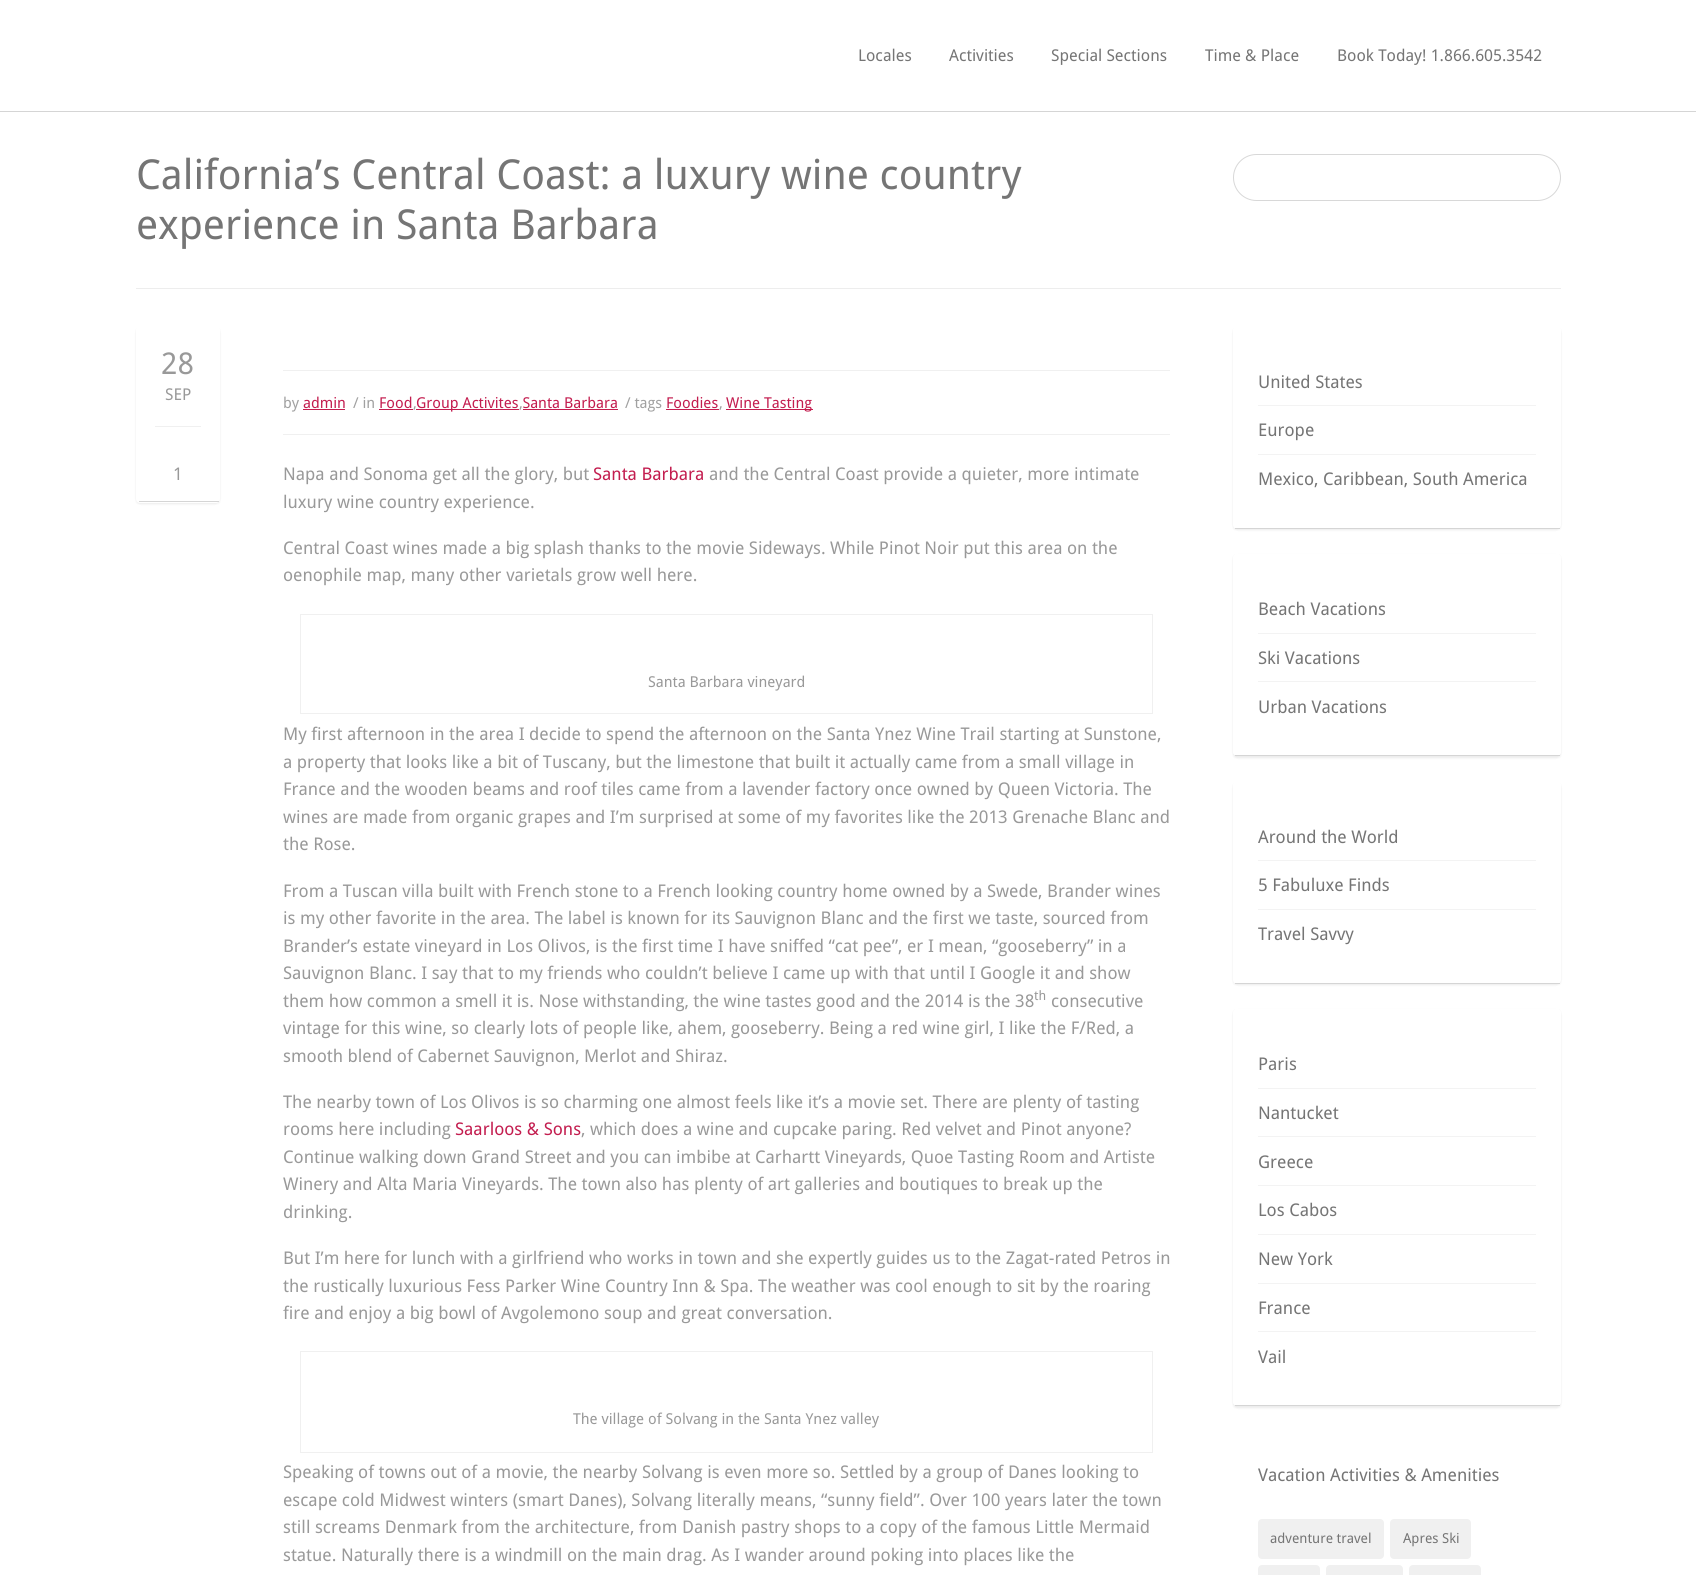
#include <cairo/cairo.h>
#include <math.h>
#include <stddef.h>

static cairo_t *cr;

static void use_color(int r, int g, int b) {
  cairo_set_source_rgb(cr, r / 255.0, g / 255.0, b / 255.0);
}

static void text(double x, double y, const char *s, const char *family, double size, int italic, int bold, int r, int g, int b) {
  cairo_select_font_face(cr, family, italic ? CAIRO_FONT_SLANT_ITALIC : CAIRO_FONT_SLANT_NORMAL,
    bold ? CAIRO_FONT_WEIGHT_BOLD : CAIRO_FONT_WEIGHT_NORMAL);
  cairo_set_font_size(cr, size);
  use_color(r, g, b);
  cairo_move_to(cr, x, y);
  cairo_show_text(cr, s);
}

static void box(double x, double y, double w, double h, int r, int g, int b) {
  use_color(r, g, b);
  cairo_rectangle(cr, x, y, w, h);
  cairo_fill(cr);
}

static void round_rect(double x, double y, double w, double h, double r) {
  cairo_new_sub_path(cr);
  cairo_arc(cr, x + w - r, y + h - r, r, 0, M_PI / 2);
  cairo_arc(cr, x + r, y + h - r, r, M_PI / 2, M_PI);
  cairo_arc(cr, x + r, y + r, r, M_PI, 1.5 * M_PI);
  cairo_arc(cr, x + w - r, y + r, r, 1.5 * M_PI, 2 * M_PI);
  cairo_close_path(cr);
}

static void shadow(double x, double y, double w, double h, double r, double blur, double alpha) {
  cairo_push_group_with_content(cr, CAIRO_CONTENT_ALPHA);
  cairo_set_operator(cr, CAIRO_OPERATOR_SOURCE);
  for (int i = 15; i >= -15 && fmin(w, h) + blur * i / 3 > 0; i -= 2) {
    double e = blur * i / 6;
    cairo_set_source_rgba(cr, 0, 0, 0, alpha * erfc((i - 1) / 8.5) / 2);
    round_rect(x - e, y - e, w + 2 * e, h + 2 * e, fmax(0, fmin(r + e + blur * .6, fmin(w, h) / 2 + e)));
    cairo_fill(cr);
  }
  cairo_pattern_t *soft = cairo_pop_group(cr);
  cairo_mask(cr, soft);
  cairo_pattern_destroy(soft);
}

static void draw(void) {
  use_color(255, 255, 255);
  cairo_paint(cr);
  box(0, 111, 1696, 1, 213, 213, 213);
  round_rect(1233.5, 154.5, 327, 46, 23);
  use_color(216, 216, 216);
  cairo_set_line_width(cr, 1);
  cairo_stroke(cr);
  box(136, 288, 1425, 1, 237, 237, 237);
  use_color(0, 0, 0);
  shadow(136, 328, 84, 176, 4, 1, 0.08);
  use_color(255, 255, 255);
  round_rect(136, 326, 84, 177, 4);
  cairo_fill(cr);
  box(139, 501, 80, 1, 213, 213, 213);
  box(155, 426, 46, 1, 240, 240, 240);
  box(283, 370, 887, 1, 240, 240, 240);
  box(283, 434, 887, 1, 240, 240, 240);
  box(303, 409, 42, 1, 195, 29, 79);
  box(379, 409, 34, 1, 195, 29, 79);
  box(416, 409, 103, 1, 195, 29, 79);
  box(523, 409, 95, 1, 195, 29, 79);
  box(666, 409, 53, 1, 195, 29, 79);
  box(726, 409, 87, 1, 195, 29, 79);
  cairo_rectangle(cr, 300.5, 614.5, 852, 99);
  use_color(240, 240, 240);
  cairo_stroke(cr);
  cairo_rectangle(cr, 300.5, 1351.5, 852, 101);
  cairo_stroke(cr);
  use_color(0, 0, 0);
  shadow(1233, 328, 328, 202, 4, 1, 0.08);
  use_color(255, 255, 255);
  round_rect(1233, 326, 328, 203, 4);
  cairo_fill(cr);
  box(1235, 528, 325, 1, 213, 213, 213);
  box(1258, 405, 278, 1, 243, 243, 243);
  box(1258, 454, 278, 1, 243, 243, 243);
  cairo_save(cr);
  cairo_set_fill_rule(cr, CAIRO_FILL_RULE_EVEN_ODD);
  cairo_new_path(cr);
  cairo_move_to(cr, 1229, 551);
  cairo_line_to(cr, 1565, 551);
  cairo_line_to(cr, 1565, 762);
  cairo_line_to(cr, 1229, 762);
  cairo_close_path(cr);
  cairo_move_to(cr, 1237, 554);
  cairo_line_to(cr, 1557, 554);
  cairo_curve_to(cr, 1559, 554, 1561, 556, 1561, 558);
  cairo_line_to(cr, 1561, 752);
  cairo_curve_to(cr, 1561, 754, 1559, 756, 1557, 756);
  cairo_line_to(cr, 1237, 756);
  cairo_curve_to(cr, 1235, 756, 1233, 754, 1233, 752);
  cairo_line_to(cr, 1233, 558);
  cairo_curve_to(cr, 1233, 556, 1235, 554, 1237, 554);
  cairo_close_path(cr);
  cairo_clip(cr);
  use_color(0, 0, 0);
  shadow(1233, 555, 328, 203, 4, 1, 0.08);
  cairo_restore(cr);
  box(1235, 755, 325, 1, 213, 213, 213);
  box(1258, 633, 278, 1, 243, 243, 243);
  box(1258, 681, 278, 1, 243, 243, 243);
  use_color(0, 0, 0);
  shadow(1233, 783, 328, 202, 4, 1, 0.08);
  use_color(255, 255, 255);
  round_rect(1233, 781, 328, 203, 4);
  cairo_fill(cr);
  box(1235, 983, 325, 1, 213, 213, 213);
  box(1258, 860, 278, 1, 243, 243, 243);
  box(1258, 909, 278, 1, 243, 243, 243);
  cairo_save(cr);
  cairo_set_fill_rule(cr, CAIRO_FILL_RULE_EVEN_ODD);
  cairo_new_path(cr);
  cairo_move_to(cr, 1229, 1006);
  cairo_line_to(cr, 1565, 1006);
  cairo_line_to(cr, 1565, 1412);
  cairo_line_to(cr, 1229, 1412);
  cairo_close_path(cr);
  cairo_move_to(cr, 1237, 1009);
  cairo_line_to(cr, 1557, 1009);
  cairo_curve_to(cr, 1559, 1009, 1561, 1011, 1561, 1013);
  cairo_line_to(cr, 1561, 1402);
  cairo_curve_to(cr, 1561, 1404, 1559, 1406, 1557, 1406);
  cairo_line_to(cr, 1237, 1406);
  cairo_curve_to(cr, 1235, 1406, 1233, 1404, 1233, 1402);
  cairo_line_to(cr, 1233, 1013);
  cairo_curve_to(cr, 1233, 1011, 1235, 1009, 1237, 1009);
  cairo_close_path(cr);
  cairo_clip(cr);
  use_color(0, 0, 0);
  shadow(1233, 1010, 328, 398, 4, 1, 0.08);
  cairo_restore(cr);
  box(1235, 1405, 325, 1, 213, 213, 213);
  box(1258, 1088, 278, 1, 243, 243, 243);
  box(1258, 1136, 278, 1, 243, 243, 243);
  box(1258, 1185, 278, 1, 243, 243, 243);
  box(1258, 1234, 278, 1, 243, 243, 243);
  box(1258, 1283, 278, 1, 243, 243, 243);
  box(1258, 1331, 278, 1, 243, 243, 243);
  use_color(240, 240, 240);
  round_rect(1258, 1519, 126, 40, 4);
  cairo_fill(cr);
  round_rect(1390, 1519, 81, 40, 4);
  cairo_fill(cr);
  round_rect(1258, 1565, 62, 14, 4);
  cairo_fill(cr);
  round_rect(1326, 1565, 77, 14, 4);
  cairo_fill(cr);
  round_rect(1409, 1565, 72, 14, 4);
  cairo_fill(cr);
  text(858, 61, "Locales", "Droid Sans", 16.25, 0, 0, 117, 117, 117);
  text(949, 61, "Activities", "Droid Sans", 16.25, 0, 0, 117, 117, 117);
  text(1051, 61, "Special Sections", "Droid Sans", 16.25, 0, 0, 117, 117, 117);
  text(1205, 61, "Time & Place", "Droid Sans", 16.25, 0, 0, 117, 117, 117);
  text(1337, 61, "Book Today! 1.866.605.3542", "Droid Sans", 16.25, 0, 0, 117, 117, 117);
  text(136, 189, "California’s Central Coast: a luxury wine country", "Droid Sans", 41.25, 0, 0, 117, 117, 117);
  text(136, 239, "experience in Santa Barbara", "Droid Sans", 41.25, 0, 0, 117, 117, 117);
  text(161, 374, "28", "Droid Sans", 30, 0, 0, 153, 153, 153);
  text(165, 400, "SEP", "Droid Sans", 16.25, 0, 0, 153, 153, 153);
  text(173, 480, "1", "Droid Sans", 17.5, 0, 0, 153, 153, 153);
  text(283, 408, "by", "Droid Sans", 15, 0, 0, 161, 161, 161);
  text(303, 408, "admin", "Droid Sans", 15, 0, 0, 195, 29, 79);
  text(353, 408, "/ in", "Droid Sans", 15, 0, 0, 161, 161, 161);
  text(379, 408, "Food", "Droid Sans", 15, 0, 0, 195, 29, 79);
  text(413, 408, ",", "Droid Sans", 15, 0, 0, 161, 161, 161);
  text(416, 408, "Group Activites Santa Barbara", "Droid Sans", 15, 0, 0, 195, 29, 79);
  text(519, 408, ",", "Droid Sans", 15, 0, 0, 161, 161, 161);
  text(625, 408, "/ tags", "Droid Sans", 15, 0, 0, 161, 161, 161);
  text(666, 408, "Foodies", "Droid Sans", 15, 0, 0, 195, 29, 79);
  text(719, 408, ",", "Droid Sans", 15, 0, 0, 161, 161, 161);
  text(726, 408, "Wine Tasting", "Droid Sans", 15, 0, 0, 195, 29, 79);
  text(283, 480, "Napa and Sonoma get all the glory, but", "Droid Sans", 17.5, 0, 0, 153, 153, 153);
  text(593, 480, "Santa Barbara", "Droid Sans", 17.5, 0, 0, 195, 29, 79);
  text(709, 480, "and the Central Coast provide a quieter, more intimate", "Droid Sans", 17.5, 0, 0, 153, 153, 153);
  text(283, 508, "luxury wine country experience.", "Droid Sans", 17.5, 0, 0, 153, 153, 153);
  text(283, 554, "Central Coast wines made a big splash thanks to the movie Sideways. While Pinot Noir put this area on the", "Droid Sans", 17.5, 0, 0, 153, 153, 153);
  text(283, 581, "oenophile map, many other varietals grow well here.", "Droid Sans", 17.5, 0, 0, 153, 153, 153);
  text(648, 687, "Santa Barbara vineyard", "Droid Sans", 15, 0, 0, 153, 153, 153);
  text(283, 740, "My first afternoon in the area I decide to spend the afternoon on the Santa Ynez Wine Trail starting at Sunstone,", "Droid Sans", 17.5, 0, 0, 153, 153, 153);
  text(283, 768, "a property that looks like a bit of Tuscany, but the limestone that built it actually came from a small village in", "Droid Sans", 17.5, 0, 0, 153, 153, 153);
  text(283, 795, "France and the wooden beams and roof tiles came from a lavender factory once owned by Queen Victoria. The", "Droid Sans", 17.5, 0, 0, 153, 153, 153);
  text(283, 823, "wines are made from organic grapes and I’m surprised at some of my favorites like the 2013 Grenache Blanc and", "Droid Sans", 17.5, 0, 0, 153, 153, 153);
  text(283, 850, "the Rose.", "Droid Sans", 17.5, 0, 0, 153, 153, 153);
  text(283, 897, "From a Tuscan villa built with French stone to a French looking country home owned by a Swede, Brander wines", "Droid Sans", 17.5, 0, 0, 153, 153, 153);
  text(283, 924, "is my other favorite in the area. The label is known for its Sauvignon Blanc and the first we taste, sourced from", "Droid Sans", 17.5, 0, 0, 153, 153, 153);
  text(283, 952, "Brander’s estate vineyard in Los Olivos, is the first time I have sniffed “cat pee”, er I mean, “gooseberry” in a", "Droid Sans", 17.5, 0, 0, 153, 153, 153);
  text(283, 979, "Sauvignon Blanc. I say that to my friends who couldn’t believe I came up with that until I Google it and show", "Droid Sans", 17.5, 0, 0, 153, 153, 153);
  text(283, 1007, "them how common a smell it is. Nose withstanding, the wine tastes good and the 2014 is the 38", "Droid Sans", 17.5, 0, 0, 153, 153, 153);
  text(1034, 1000, "th", "Droid Sans", 13, 0, 0, 153, 153, 153);
  text(1051, 1007, "consecutive", "Droid Sans", 17.5, 0, 0, 153, 153, 153);
  text(283, 1034, "vintage for this wine, so clearly lots of people like, ahem, gooseberry. Being a red wine girl, I like the F/Red, a", "Droid Sans", 17.5, 0, 0, 153, 153, 153);
  text(283, 1062, "smooth blend of Cabernet Sauvignon, Merlot and Shiraz.", "Droid Sans", 17.5, 0, 0, 153, 153, 153);
  text(283, 1108, "The nearby town of Los Olivos is so charming one almost feels like it’s a movie set. There are plenty of tasting", "Droid Sans", 17.5, 0, 0, 153, 153, 153);
  text(283, 1135, "rooms here including", "Droid Sans", 17.5, 0, 0, 153, 153, 153);
  text(455, 1135, "Saarloos & Sons", "Droid Sans", 17.5, 0, 0, 195, 29, 79);
  text(581, 1135, ", which does a wine and cupcake paring. Red velvet and Pinot anyone?", "Droid Sans", 17.5, 0, 0, 153, 153, 153);
  text(283, 1163, "Continue walking down Grand Street and you can imbibe at Carhartt Vineyards, Quoe Tasting Room and Artiste", "Droid Sans", 17.5, 0, 0, 153, 153, 153);
  text(283, 1190, "Winery and Alta Maria Vineyards. The town also has plenty of art galleries and boutiques to break up the", "Droid Sans", 17.5, 0, 0, 153, 153, 153);
  text(283, 1218, "drinking.", "Droid Sans", 17.5, 0, 0, 153, 153, 153);
  text(283, 1264, "But I’m here for lunch with a girlfriend who works in town and she expertly guides us to the Zagat-rated Petros in", "Droid Sans", 17.5, 0, 0, 153, 153, 153);
  text(283, 1292, "the rustically luxurious Fess Parker Wine Country Inn & Spa. The weather was cool enough to sit by the roaring", "Droid Sans", 17.5, 0, 0, 153, 153, 153);
  text(283, 1319, "fire and enjoy a big bowl of Avgolemono soup and great conversation.", "Droid Sans", 17.5, 0, 0, 153, 153, 153);
  text(573, 1424, "The village of Solvang in the Santa Ynez valley", "Droid Sans", 15, 0, 0, 153, 153, 153);
  text(283, 1478, "Speaking of towns out of a movie, the nearby Solvang is even more so. Settled by a group of Danes looking to", "Droid Sans", 17.5, 0, 0, 153, 153, 153);
  text(283, 1506, "escape cold Midwest winters (smart Danes), Solvang literally means, “sunny field”. Over 100 years later the town", "Droid Sans", 17.5, 0, 0, 153, 153, 153);
  text(283, 1533, "still screams Denmark from the architecture, from Danish pastry shops to a copy of the famous Little Mermaid", "Droid Sans", 17.5, 0, 0, 153, 153, 153);
  text(283, 1561, "statue. Naturally there is a windmill on the main drag. As I wander around poking into places like the", "Droid Sans", 17.5, 0, 0, 153, 153, 153);
  text(1258, 388, "United States", "Droid Sans", 17.5, 0, 0, 117, 117, 117);
  text(1258, 436, "Europe", "Droid Sans", 17.5, 0, 0, 117, 117, 117);
  text(1258, 485, "Mexico, Caribbean, South America", "Droid Sans", 17.5, 0, 0, 117, 117, 117);
  text(1258, 615, "Beach Vacations", "Droid Sans", 17.5, 0, 0, 117, 117, 117);
  text(1258, 664, "Ski Vacations", "Droid Sans", 17.5, 0, 0, 117, 117, 117);
  text(1258, 713, "Urban Vacations", "Droid Sans", 17.5, 0, 0, 117, 117, 117);
  text(1258, 843, "Around the World", "Droid Sans", 17.5, 0, 0, 117, 117, 117);
  text(1258, 891, "5 Fabuluxe Finds", "Droid Sans", 17.5, 0, 0, 117, 117, 117);
  text(1258, 940, "Travel Savvy", "Droid Sans", 17.5, 0, 0, 117, 117, 117);
  text(1258, 1070, "Paris", "Droid Sans", 17.5, 0, 0, 117, 117, 117);
  text(1258, 1119, "Nantucket", "Droid Sans", 17.5, 0, 0, 117, 117, 117);
  text(1258, 1168, "Greece", "Droid Sans", 17.5, 0, 0, 117, 117, 117);
  text(1258, 1216, "Los Cabos", "Droid Sans", 17.5, 0, 0, 117, 117, 117);
  text(1258, 1265, "New York", "Droid Sans", 17.5, 0, 0, 117, 117, 117);
  text(1258, 1314, "France", "Droid Sans", 17.5, 0, 0, 117, 117, 117);
  text(1258, 1363, "Vail", "Droid Sans", 17.5, 0, 0, 117, 117, 117);
  text(1258, 1481, "Vacation Activities & Amenities", "Droid Sans", 17.5, 0, 0, 117, 117, 117);
  text(1270, 1543, "adventure travel", "Droid Sans", 13.75, 0, 0, 117, 117, 117);
  text(1403, 1543, "Apres Ski", "Droid Sans", 13.75, 0, 0, 117, 117, 117);
}

int main(void) {
  cairo_surface_t *surface = cairo_image_surface_create(CAIRO_FORMAT_RGB24, 1696, 1575);
  cr = cairo_create(surface);
  cairo_font_options_t *options = cairo_font_options_create();
  cairo_font_options_set_hint_metrics(options, CAIRO_HINT_METRICS_OFF);
  cairo_font_options_set_hint_style(options, CAIRO_HINT_STYLE_NONE);
  cairo_set_font_options(cr, options);
  cairo_set_miter_limit(cr, 4);
  draw();
  cairo_surface_write_to_png(surface, "out.png");
  cairo_font_options_destroy(options);
  cairo_destroy(cr);
  cairo_surface_destroy(surface);
  return 0;
}
